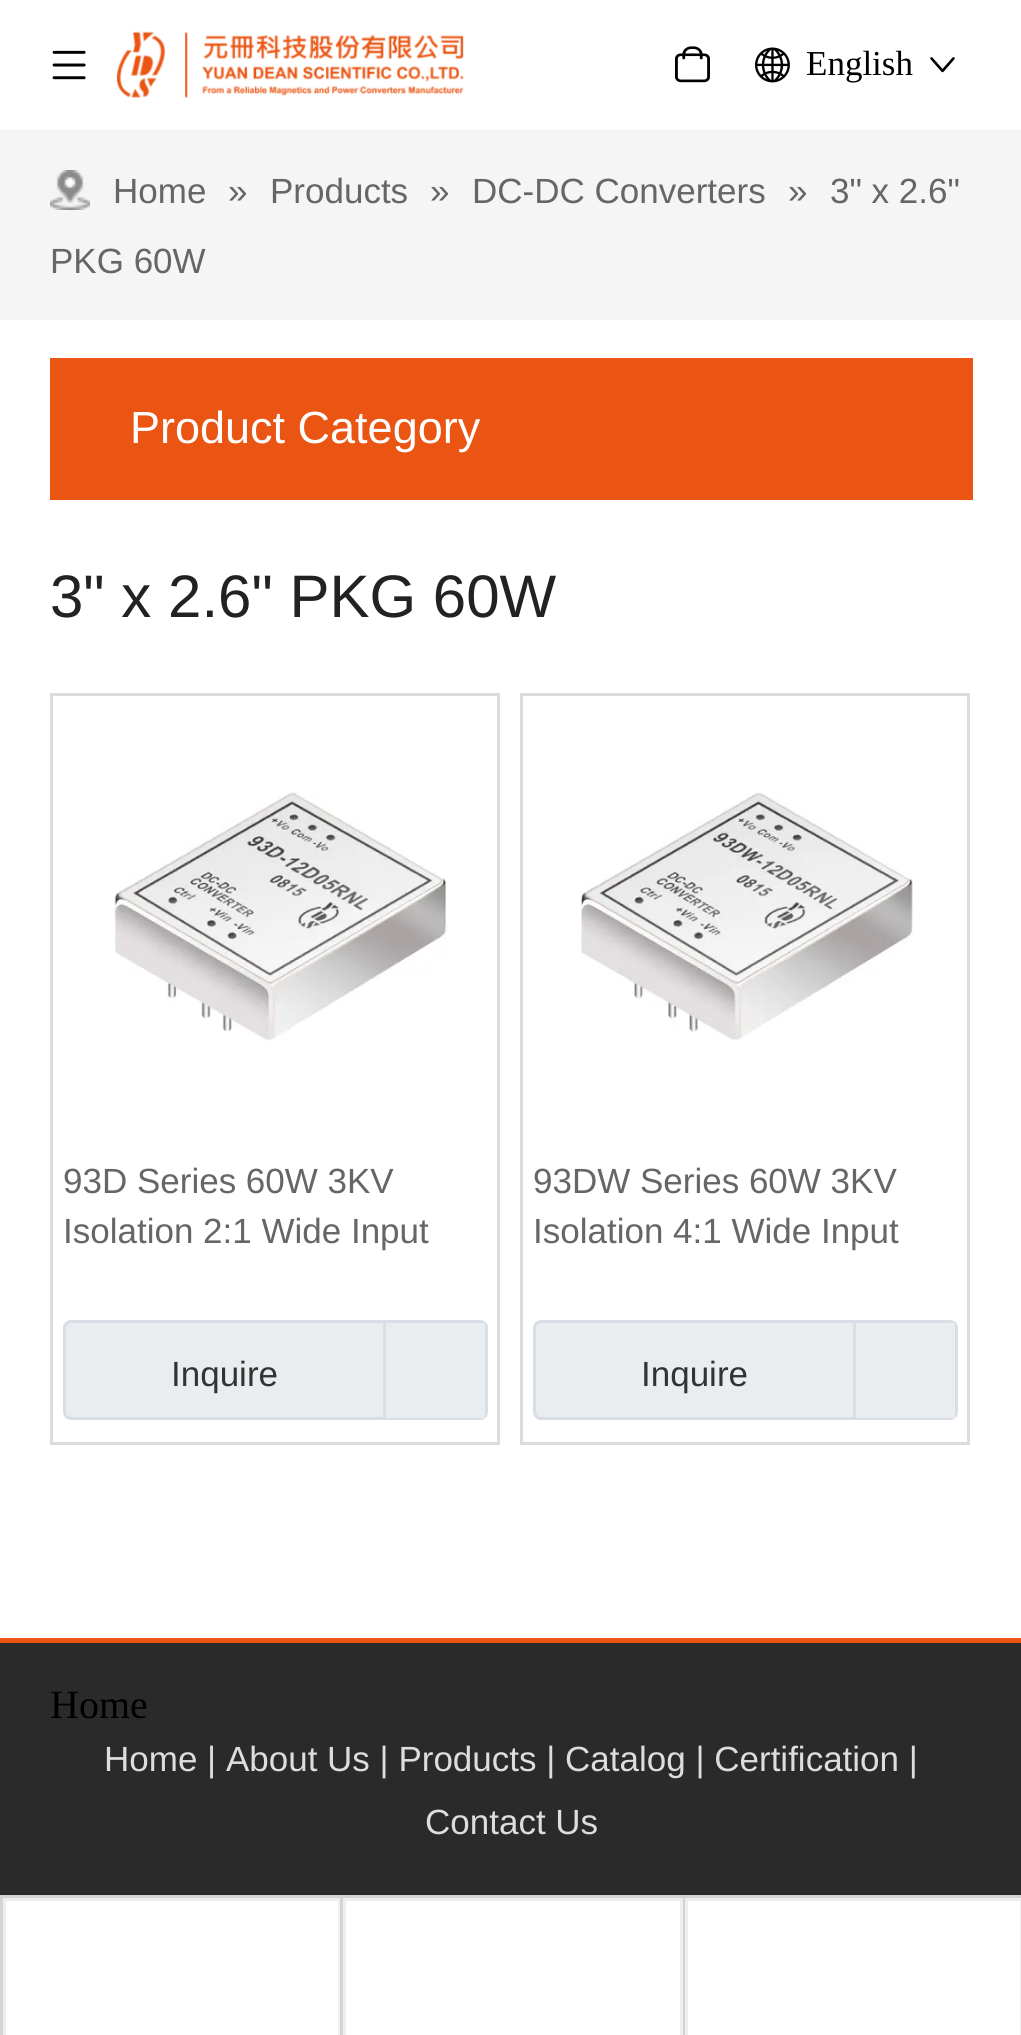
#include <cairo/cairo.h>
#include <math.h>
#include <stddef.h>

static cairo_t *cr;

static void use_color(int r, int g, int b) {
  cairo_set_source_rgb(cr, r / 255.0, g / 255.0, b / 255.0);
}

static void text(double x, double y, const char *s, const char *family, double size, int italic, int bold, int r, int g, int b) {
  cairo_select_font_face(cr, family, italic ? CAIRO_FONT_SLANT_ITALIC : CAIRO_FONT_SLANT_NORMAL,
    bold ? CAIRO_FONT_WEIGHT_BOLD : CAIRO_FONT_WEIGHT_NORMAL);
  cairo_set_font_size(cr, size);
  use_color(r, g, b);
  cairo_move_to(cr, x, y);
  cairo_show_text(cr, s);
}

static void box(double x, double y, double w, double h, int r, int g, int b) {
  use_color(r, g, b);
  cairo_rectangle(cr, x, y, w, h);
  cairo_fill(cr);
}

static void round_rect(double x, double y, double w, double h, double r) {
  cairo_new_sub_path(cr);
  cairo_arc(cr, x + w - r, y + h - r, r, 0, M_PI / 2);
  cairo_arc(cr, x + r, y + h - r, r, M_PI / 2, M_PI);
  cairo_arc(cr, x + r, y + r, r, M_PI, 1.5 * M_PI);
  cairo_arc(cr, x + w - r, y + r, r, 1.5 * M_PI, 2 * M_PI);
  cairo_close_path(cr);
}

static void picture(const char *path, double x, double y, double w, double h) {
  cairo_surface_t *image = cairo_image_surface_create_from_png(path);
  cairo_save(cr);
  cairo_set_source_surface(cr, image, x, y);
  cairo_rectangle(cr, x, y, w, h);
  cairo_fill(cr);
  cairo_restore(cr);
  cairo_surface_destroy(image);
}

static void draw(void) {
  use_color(245, 245, 245);
  cairo_paint(cr);
  box(0, 0, 1021, 130, 255, 255, 255);
  picture("img_01.png", 52, 50, 34, 30);
  picture("img_02.png", 116, 31, 348, 67);
  picture("img_03.png", 675, 46, 35, 37);
  picture("img_04.png", 755, 47, 35, 36);
  picture("img_05.png", 930, 57, 25, 16);
  picture("img_06.png", 50, 170, 40, 40);
  box(0, 320, 1021, 1318, 255, 255, 255);
  box(50, 358, 923, 142, 234, 85, 20);
  cairo_rectangle(cr, 51.5, 694.5, 447, 749);
  use_color(220, 220, 220);
  cairo_set_line_width(cr, 3);
  cairo_stroke(cr);
  picture("img_07.png", 114, 792, 334, 249);
  use_color(234, 237, 239);
  round_rect(64.5, 1321.5, 422, 97, 6.5);
  cairo_fill_preserve(cr);
  use_color(216, 221, 230);
  cairo_stroke(cr);
  box(386, 1323, 99, 95, 234, 237, 239);
  box(383, 1323, 3, 95, 216, 221, 230);
  cairo_rectangle(cr, 521.5, 694.5, 447, 749);
  use_color(220, 220, 220);
  cairo_stroke(cr);
  picture("img_08.png", 581, 792, 332, 249);
  use_color(234, 237, 239);
  round_rect(534.5, 1321.5, 422, 97, 6.5);
  cairo_fill_preserve(cr);
  use_color(216, 221, 230);
  cairo_stroke(cr);
  box(856, 1323, 99, 95, 234, 237, 239);
  box(853, 1323, 3, 95, 216, 221, 230);
  box(0, 1643, 1021, 252, 42, 42, 42);
  box(0, 1638, 1021, 5, 234, 85, 20);
  box(0, 1895, 1021, 3, 211, 211, 211);
  box(0, 1898, 3, 137, 211, 211, 211);
  box(6, 1901, 332, 134, 255, 255, 255);
  box(3, 1898, 337, 3, 238, 238, 238);
  box(338, 1898, 2, 137, 238, 238, 238);
  box(3, 1898, 3, 137, 238, 238, 238);
  box(340, 1898, 3, 137, 211, 211, 211);
  box(346, 1901, 334, 134, 255, 255, 255);
  box(343, 1898, 340, 3, 238, 238, 238);
  box(680, 1898, 3, 137, 238, 238, 238);
  box(343, 1898, 3, 137, 238, 238, 238);
  box(683, 1898, 2, 137, 211, 211, 211);
  use_color(255, 255, 255);
  cairo_rectangle(cr, 686.5, 1899.5, 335, 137);
  cairo_fill_preserve(cr);
  use_color(238, 238, 238);
  cairo_stroke(cr);
  text(806, 75, "English", "Liberation Serif", 35, 0, 0, 0, 0, 0);
  text(113, 203, "Home", "Liberation Sans", 35, 0, 0, 102, 102, 102);
  text(228, 203, "»", "Liberation Sans", 35, 0, 0, 102, 102, 102);
  text(270, 203, "Products", "Liberation Sans", 35, 0, 0, 102, 102, 102);
  text(430, 203, "»", "Liberation Sans", 35, 0, 0, 102, 102, 102);
  text(472, 203, "DC-DC Converters", "Liberation Sans", 35, 0, 0, 102, 102, 102);
  text(788, 203, "»", "Liberation Sans", 35, 0, 0, 102, 102, 102);
  text(830, 203, "3\" x 2.6\"", "Liberation Sans", 35, 0, 0, 102, 102, 102);
  text(50, 273, "PKG 60W", "Liberation Sans", 35, 0, 0, 102, 102, 102);
  text(130, 443, "Product Category", "Liberation Sans", 45, 0, 0, 255, 255, 255);
  text(50, 617, "3\" x 2.6\" PKG 60W", "Liberation Sans", 60, 0, 0, 34, 34, 34);
  text(63, 1193, "93D Series 60W 3KV", "Liberation Sans", 35, 0, 0, 102, 102, 102);
  text(63, 1243, "Isolation 2:1 Wide Input", "Liberation Sans", 35, 0, 0, 102, 102, 102);
  text(171, 1386, "Inquire", "Liberation Sans", 35, 0, 0, 51, 51, 51);
  text(533, 1193, "93DW Series 60W 3KV", "Liberation Sans", 35, 0, 0, 102, 102, 102);
  text(533, 1243, "Isolation 4:1 Wide Input", "Liberation Sans", 35, 0, 0, 102, 102, 102);
  text(641, 1386, "Inquire", "Liberation Sans", 35, 0, 0, 51, 51, 51);
  text(50, 1718, "Home", "Liberation Serif", 40, 0, 0, 0, 0, 0);
  text(104, 1771, "Home | About Us | Products | Catalog | Certification |", "Liberation Sans", 35, 0, 0, 221, 221, 221);
  text(425, 1834, "Contact Us", "Liberation Sans", 35, 0, 0, 221, 221, 221);
}

int main(void) {
  cairo_surface_t *surface = cairo_image_surface_create(CAIRO_FORMAT_RGB24, 1021, 2035);
  cr = cairo_create(surface);
  cairo_font_options_t *options = cairo_font_options_create();
  cairo_font_options_set_hint_metrics(options, CAIRO_HINT_METRICS_OFF);
  cairo_font_options_set_hint_style(options, CAIRO_HINT_STYLE_NONE);
  cairo_set_font_options(cr, options);
  cairo_set_miter_limit(cr, 4);
  draw();
  cairo_surface_write_to_png(surface, "out.png");
  cairo_font_options_destroy(options);
  cairo_destroy(cr);
  cairo_surface_destroy(surface);
  return 0;
}
